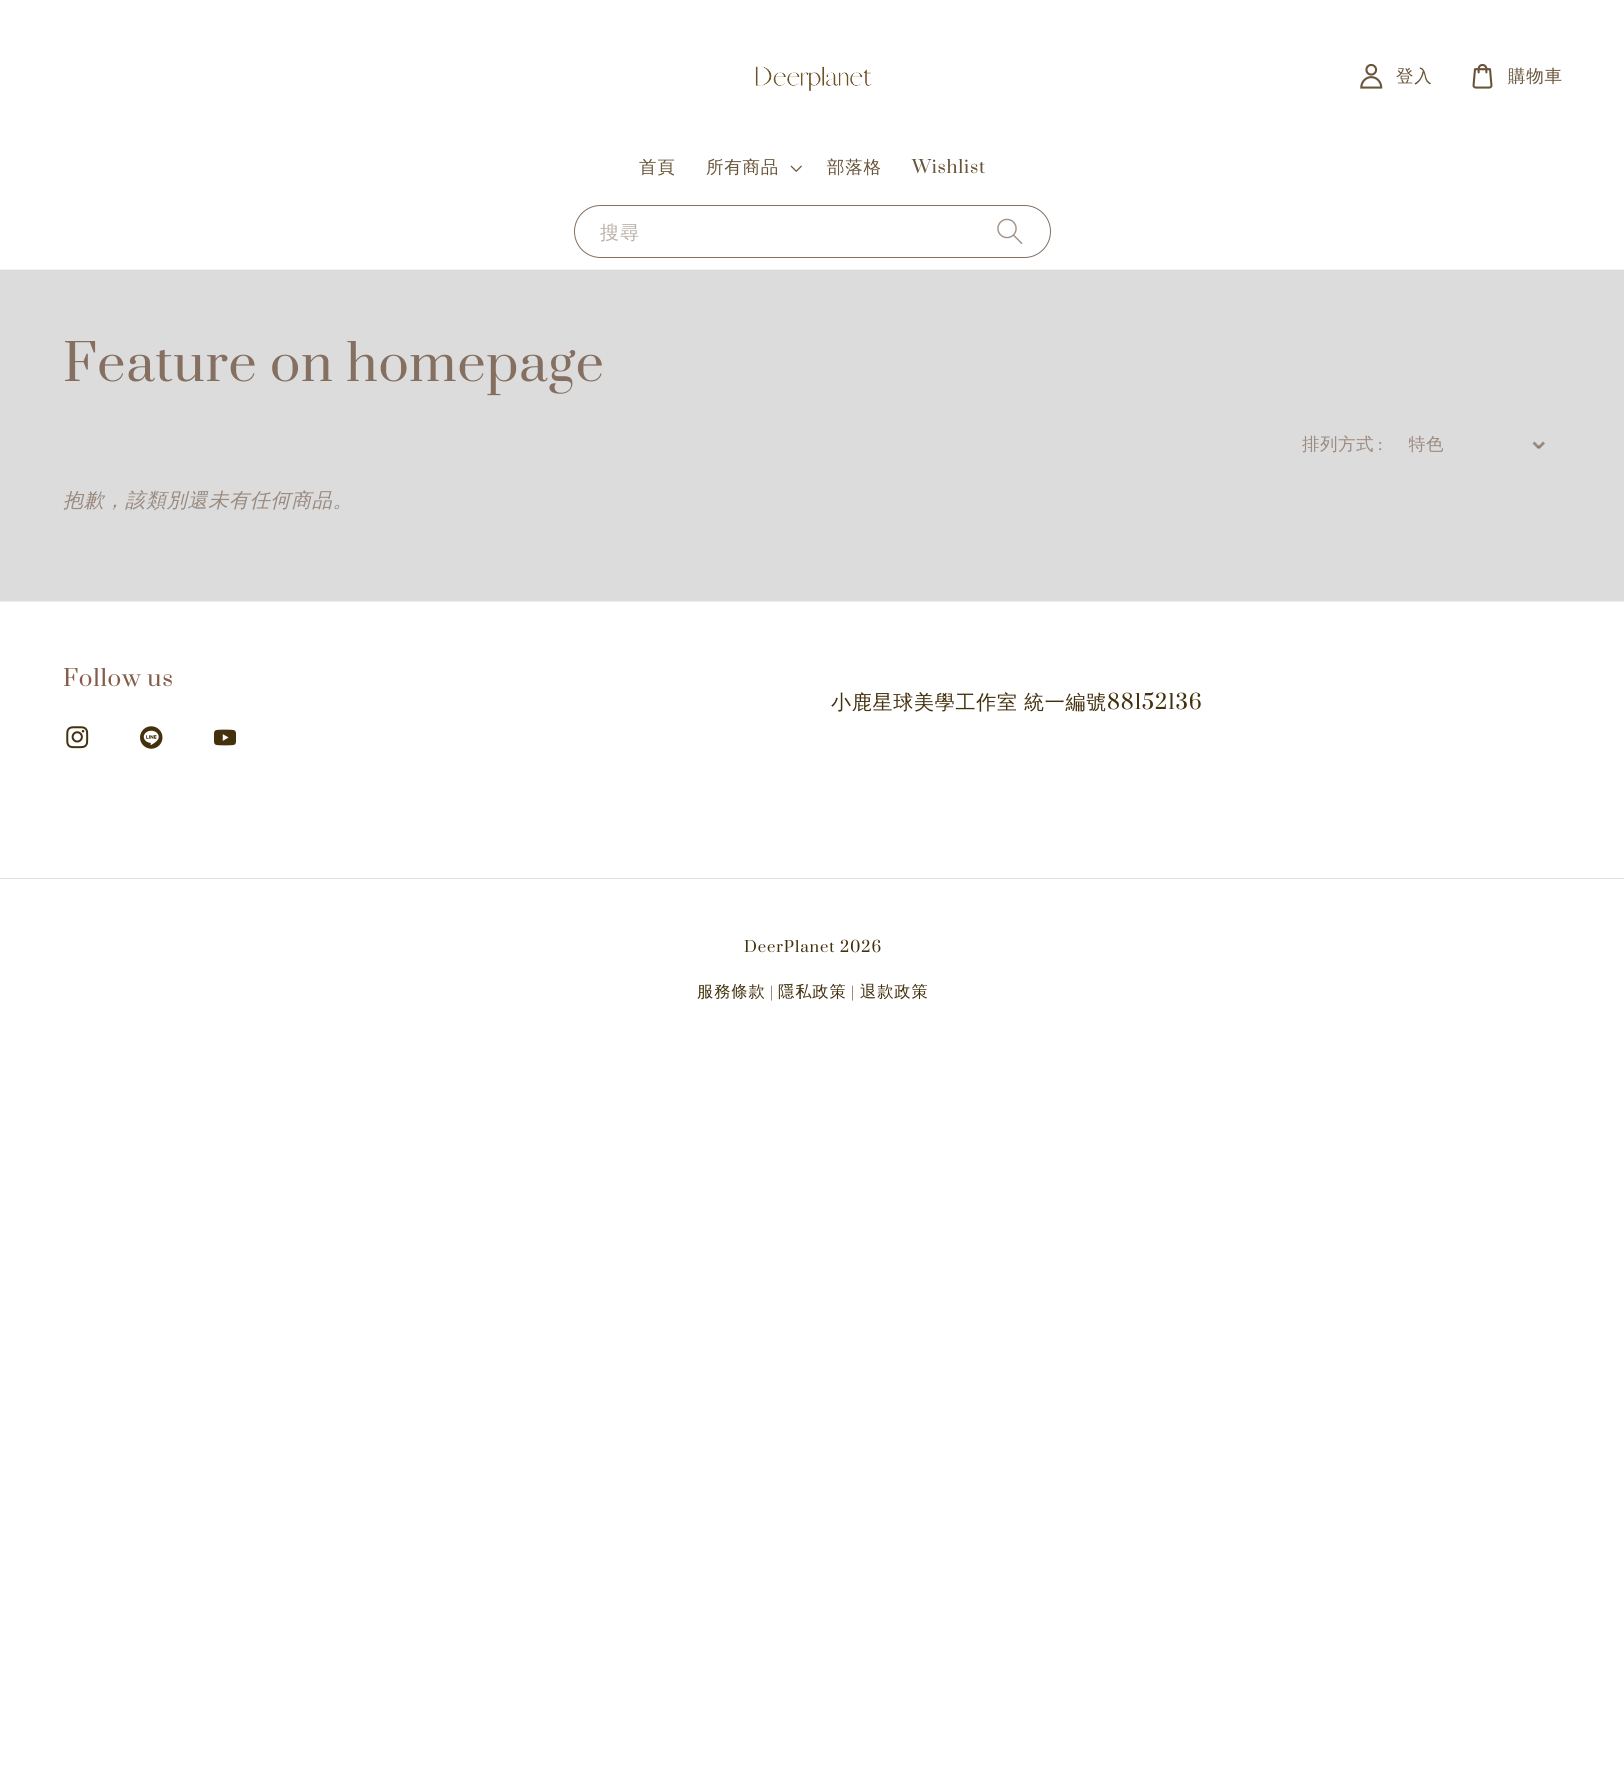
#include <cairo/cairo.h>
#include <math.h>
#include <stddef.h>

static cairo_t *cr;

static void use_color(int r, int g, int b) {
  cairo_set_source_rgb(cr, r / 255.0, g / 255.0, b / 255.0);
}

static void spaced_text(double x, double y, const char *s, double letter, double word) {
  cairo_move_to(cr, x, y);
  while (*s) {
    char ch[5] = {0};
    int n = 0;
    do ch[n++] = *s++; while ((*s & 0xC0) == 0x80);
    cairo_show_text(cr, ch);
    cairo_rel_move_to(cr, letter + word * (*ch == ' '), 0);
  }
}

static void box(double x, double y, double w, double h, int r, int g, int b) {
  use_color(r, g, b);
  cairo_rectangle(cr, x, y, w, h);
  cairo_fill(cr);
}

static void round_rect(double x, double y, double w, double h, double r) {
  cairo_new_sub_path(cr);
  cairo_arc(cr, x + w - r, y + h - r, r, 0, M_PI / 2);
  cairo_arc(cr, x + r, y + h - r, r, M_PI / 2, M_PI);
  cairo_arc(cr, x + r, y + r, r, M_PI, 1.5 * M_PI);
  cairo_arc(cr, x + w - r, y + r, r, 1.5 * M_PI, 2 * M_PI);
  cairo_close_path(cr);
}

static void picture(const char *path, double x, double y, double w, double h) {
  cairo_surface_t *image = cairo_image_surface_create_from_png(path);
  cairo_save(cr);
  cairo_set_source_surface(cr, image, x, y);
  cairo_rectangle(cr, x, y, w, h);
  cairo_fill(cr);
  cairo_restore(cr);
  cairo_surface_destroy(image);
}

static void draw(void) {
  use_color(220, 220, 220);
  cairo_paint(cr);
  box(0, 0, 1624, 269, 255, 255, 255);
  box(0, 269, 1624, 1, 245, 243, 242);
  picture("img_01.png", 755, 66, 117, 25);
  picture("img_02.png", 1360, 64, 23, 25);
  picture("img_03.png", 1472, 64, 21, 25);
  picture("img_04.png", 790, 165, 12, 7);
  round_rect(574.5, 205.5, 476, 52, 26);
  use_color(132, 111, 97);
  cairo_set_line_width(cr, 1);
  cairo_stroke(cr);
  picture("img_05.png", 997, 218, 26, 27);
  use_color(154, 138, 128);
  cairo_new_path(cr);
  cairo_move_to(cr, 1543, 441.5);
  cairo_line_to(cr, 1545, 443.5);
  cairo_line_to(cr, 1539.5, 449);
  cairo_line_to(cr, 1537.5, 447);
  cairo_close_path(cr);
  cairo_fill(cr);
  cairo_set_source_rgba(cr, 0.518, 0.435, 0.38, 0.75);
  cairo_new_path(cr);
  cairo_move_to(cr, 1532.5, 443.5);
  cairo_line_to(cr, 1534.5, 441.5);
  cairo_line_to(cr, 1540, 447);
  cairo_line_to(cr, 1538, 449);
  cairo_close_path(cr);
  cairo_fill(cr);
  box(0, 602, 1624, 1177, 255, 255, 255);
  box(0, 601, 1624, 1, 240, 238, 236);
  picture("img_06.png", 66, 726, 23, 23);
  picture("img_07.png", 140, 726, 23, 23);
  picture("img_08.png", 214, 729, 22, 17);
  box(0, 878, 1624, 1, 227, 224, 219);
  cairo_select_font_face(cr, "WenQuanYi Zen Hei Medium", CAIRO_FONT_SLANT_NORMAL, CAIRO_FONT_WEIGHT_NORMAL);
  cairo_set_font_size(cr, 17.5);
  use_color(104, 84, 57);
  spaced_text(1396, 82, "登入", 0.75, 0);
  spaced_text(1508, 82, "購物車", 0.75, 0);
  spaced_text(639, 173, "首頁", 0.75, 0);
  spaced_text(706, 173, "所有商品", 0.75, 0);
  spaced_text(827, 173, "部落格", 0.75, 0);
  cairo_select_font_face(cr, "Prata", CAIRO_FONT_SLANT_NORMAL, CAIRO_FONT_WEIGHT_NORMAL);
  spaced_text(912, 173, "Wishlist", 0.75, 0);
  cairo_select_font_face(cr, "WenQuanYi Zen Hei Medium", CAIRO_FONT_SLANT_NORMAL, CAIRO_FONT_WEIGHT_NORMAL);
  cairo_set_font_size(cr, 19);
  use_color(187, 176, 168);
  spaced_text(600, 239, "搜尋", 1, 0);
  cairo_select_font_face(cr, "Prata", CAIRO_FONT_SLANT_NORMAL, CAIRO_FONT_WEIGHT_NORMAL);
  cairo_set_font_size(cr, 50);
  use_color(132, 111, 97);
  spaced_text(63, 381, "Feature on homepage", 0.75, 0);
  cairo_select_font_face(cr, "WenQuanYi Zen Hei Medium", CAIRO_FONT_SLANT_NORMAL, CAIRO_FONT_WEIGHT_NORMAL);
  cairo_set_font_size(cr, 17.5);
  use_color(154, 138, 128);
  spaced_text(1302, 450, "排列方式", 0.5, 0);
  cairo_select_font_face(cr, "Prata", CAIRO_FONT_SLANT_NORMAL, CAIRO_FONT_WEIGHT_NORMAL);
  spaced_text(1378, 450, ":", 0.5, 0);
  cairo_save(cr);
  cairo_rectangle(cr, 1409, 431, 132, 27);
  cairo_clip(cr);
  cairo_select_font_face(cr, "WenQuanYi Zen Hei Medium", CAIRO_FONT_SLANT_NORMAL, CAIRO_FONT_WEIGHT_NORMAL);
  spaced_text(1408, 450, "特色", 0.5, 0);
  cairo_restore(cr);
  cairo_select_font_face(cr, "WenQuanYi Zen Hei Medium", CAIRO_FONT_SLANT_ITALIC, CAIRO_FONT_WEIGHT_NORMAL);
  cairo_set_font_size(cr, 20);
  spaced_text(63, 507, "抱歉，該類別還未有任何商品。", 0.75, 0);
  cairo_select_font_face(cr, "Prata", CAIRO_FONT_SLANT_NORMAL, CAIRO_FONT_WEIGHT_NORMAL);
  cairo_set_font_size(cr, 22.5);
  use_color(133, 92, 74);
  spaced_text(63, 686, "Follow us", 0.75, 0);
  cairo_select_font_face(cr, "WenQuanYi Zen Hei Medium", CAIRO_FONT_SLANT_NORMAL, CAIRO_FONT_WEIGHT_NORMAL);
  cairo_set_font_size(cr, 20);
  use_color(67, 48, 13);
  spaced_text(831, 709, "小鹿星球美學工作室", 0.75, 0);
  spaced_text(1024, 709, "統一編號", 0.75, 0);
  cairo_select_font_face(cr, "Prata", CAIRO_FONT_SLANT_NORMAL, CAIRO_FONT_WEIGHT_NORMAL);
  spaced_text(1107, 709, "88152136", 0.75, 0);
  cairo_set_font_size(cr, 15);
  spaced_text(744, 952, "DeerPlanet 2026", 0.9, 0);
  cairo_select_font_face(cr, "WenQuanYi Zen Hei Medium", CAIRO_FONT_SLANT_NORMAL, CAIRO_FONT_WEIGHT_NORMAL);
  cairo_set_font_size(cr, 16.25);
  spaced_text(697, 997, "服務條款", 0.9, 0);
  cairo_select_font_face(cr, "Prata", CAIRO_FONT_SLANT_NORMAL, CAIRO_FONT_WEIGHT_NORMAL);
  cairo_set_font_size(cr, 15);
  spaced_text(770, 997, "|", 0.9, 0);
  cairo_select_font_face(cr, "WenQuanYi Zen Hei Medium", CAIRO_FONT_SLANT_NORMAL, CAIRO_FONT_WEIGHT_NORMAL);
  cairo_set_font_size(cr, 16.25);
  spaced_text(778, 997, "隱私政策", 0.9, 0);
  cairo_select_font_face(cr, "Prata", CAIRO_FONT_SLANT_NORMAL, CAIRO_FONT_WEIGHT_NORMAL);
  cairo_set_font_size(cr, 15);
  spaced_text(851, 997, "|", 0.9, 0);
  cairo_select_font_face(cr, "WenQuanYi Zen Hei Medium", CAIRO_FONT_SLANT_NORMAL, CAIRO_FONT_WEIGHT_NORMAL);
  cairo_set_font_size(cr, 16.25);
  spaced_text(860, 997, "退款政策", 0.9, 0);
}

int main(void) {
  cairo_surface_t *surface = cairo_image_surface_create(CAIRO_FORMAT_RGB24, 1624, 1779);
  cr = cairo_create(surface);
  cairo_font_options_t *options = cairo_font_options_create();
  cairo_font_options_set_hint_metrics(options, CAIRO_HINT_METRICS_OFF);
  cairo_font_options_set_hint_style(options, CAIRO_HINT_STYLE_NONE);
  cairo_set_font_options(cr, options);
  cairo_set_miter_limit(cr, 4);
  draw();
  cairo_surface_write_to_png(surface, "out.png");
  cairo_font_options_destroy(options);
  cairo_destroy(cr);
  cairo_surface_destroy(surface);
  return 0;
}
